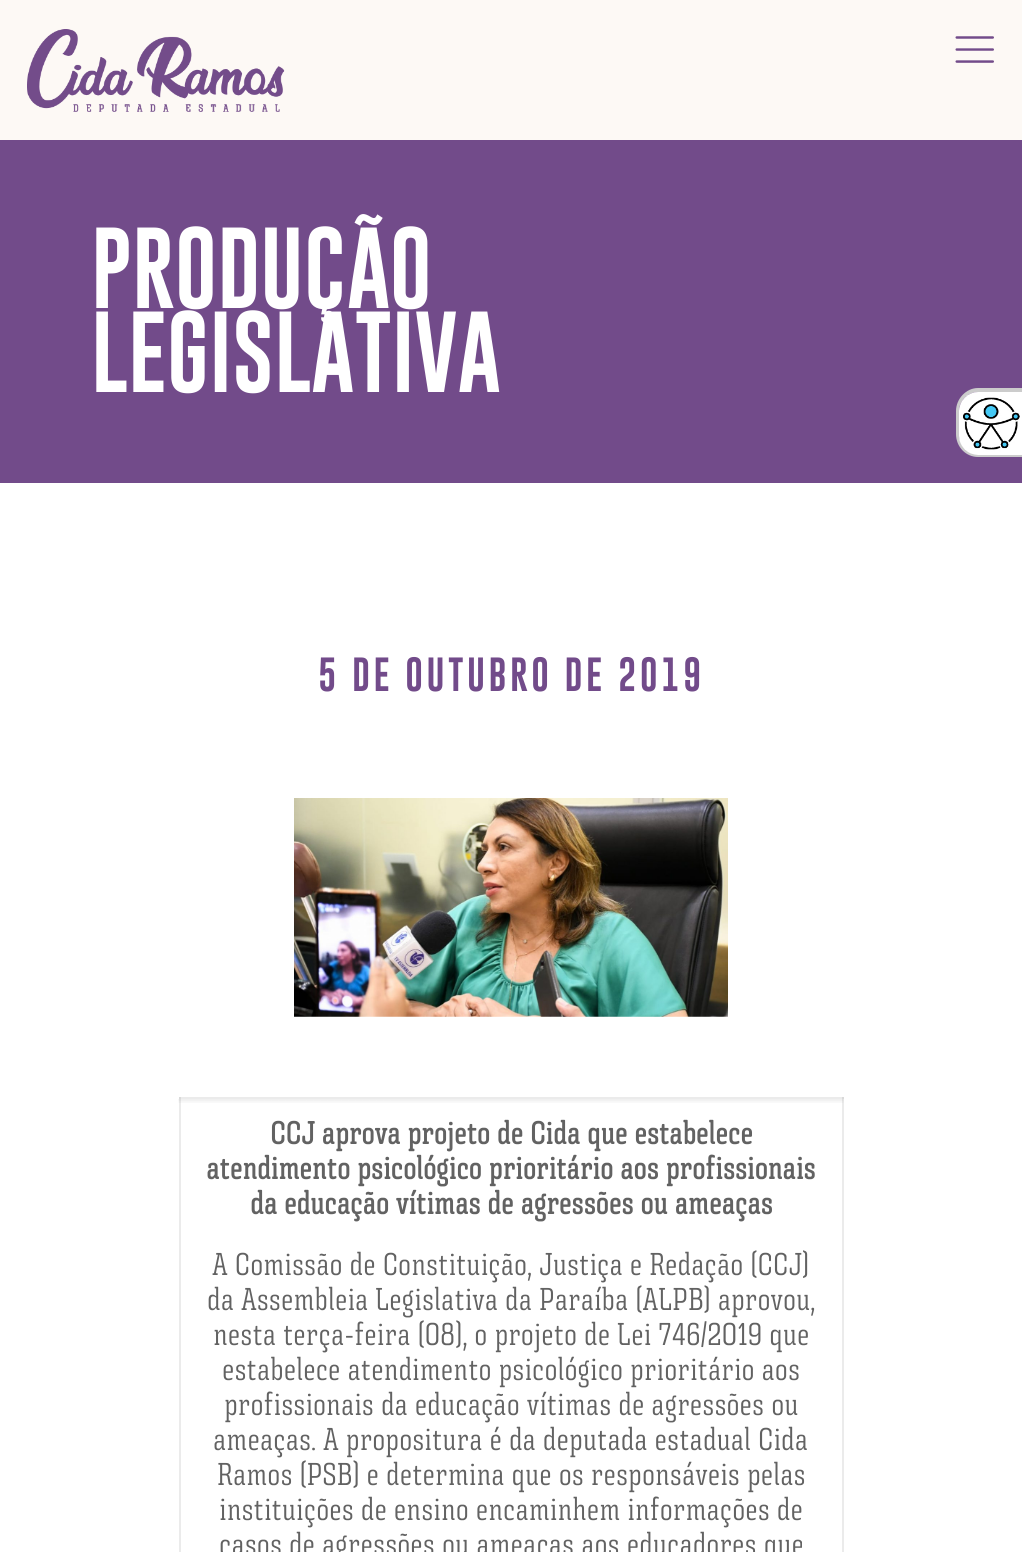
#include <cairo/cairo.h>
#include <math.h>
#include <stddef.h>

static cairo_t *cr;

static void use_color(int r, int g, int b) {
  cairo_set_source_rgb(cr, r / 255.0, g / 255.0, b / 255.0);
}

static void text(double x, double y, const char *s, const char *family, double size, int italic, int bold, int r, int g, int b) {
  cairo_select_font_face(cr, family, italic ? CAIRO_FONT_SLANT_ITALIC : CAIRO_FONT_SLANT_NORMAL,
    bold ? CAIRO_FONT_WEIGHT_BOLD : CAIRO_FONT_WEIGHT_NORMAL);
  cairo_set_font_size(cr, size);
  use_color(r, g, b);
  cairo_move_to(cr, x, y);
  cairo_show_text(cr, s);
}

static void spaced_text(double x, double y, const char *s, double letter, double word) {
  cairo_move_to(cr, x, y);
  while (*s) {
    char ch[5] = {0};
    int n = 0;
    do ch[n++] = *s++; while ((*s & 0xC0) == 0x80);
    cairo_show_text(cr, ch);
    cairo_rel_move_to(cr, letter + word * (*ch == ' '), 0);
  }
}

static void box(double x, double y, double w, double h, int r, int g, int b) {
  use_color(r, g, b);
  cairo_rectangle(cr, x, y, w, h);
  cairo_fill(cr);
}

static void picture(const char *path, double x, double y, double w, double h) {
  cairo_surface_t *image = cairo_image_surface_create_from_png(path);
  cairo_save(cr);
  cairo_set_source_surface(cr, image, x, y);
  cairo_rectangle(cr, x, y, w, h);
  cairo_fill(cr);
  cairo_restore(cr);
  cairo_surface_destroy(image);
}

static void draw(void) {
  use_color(255, 255, 255);
  cairo_paint(cr);
  box(0, 0, 1022, 140, 253, 249, 245);
  picture("img_01.png", 27, 29, 258, 83);
  picture("img_02.png", 955, 36, 39, 27);
  box(0, 140, 1022, 343, 114, 75, 138);
  picture("img_03.png", 294, 798, 434, 219);
  picture("img_04.png", 178, 1099, 666, 4);
  box(179, 1097, 665, 2, 235, 235, 235);
  cairo_set_source_rgba(cr, 0, 0, 0, 0.08);
  cairo_rectangle(cr, 842, 1097, 2, 455);
  cairo_fill(cr);
  cairo_rectangle(cr, 179, 1097, 2, 455);
  cairo_fill(cr);
  use_color(204, 204, 204);
  cairo_set_fill_rule(cr, CAIRO_FILL_RULE_EVEN_ODD);
  cairo_new_path(cr);
  cairo_move_to(cr, 978, 388);
  cairo_line_to(cr, 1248, 388);
  cairo_line_to(cr, 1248, 457);
  cairo_line_to(cr, 978, 457);
  cairo_curve_to(cr, 966, 457, 956, 447, 956, 434);
  cairo_line_to(cr, 956, 411);
  cairo_curve_to(cr, 956, 399, 966, 388, 978, 388);
  cairo_close_path(cr);
  cairo_move_to(cr, 978, 392);
  cairo_line_to(cr, 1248, 392);
  cairo_line_to(cr, 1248, 453);
  cairo_line_to(cr, 978, 453);
  cairo_curve_to(cr, 968, 453, 959, 445, 959, 434);
  cairo_line_to(cr, 959, 411);
  cairo_curve_to(cr, 959, 401, 968, 392, 978, 392);
  cairo_close_path(cr);
  cairo_fill(cr);
  picture("img_05.png", 959, 392, 63, 63);
  text(91, 308, "PRODUÇÃO", "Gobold", 84, 0, 1, 255, 255, 255);
  text(91, 392, "LEGISLATIVA", "Gobold", 84, 0, 1, 255, 255, 255);
  cairo_set_font_size(cr, 35);
  use_color(114, 75, 138);
  spaced_text(318, 691, "5 DE OUTUBRO DE 2019", 3.5, 0);
  text(270, 1144, "CCJ aprova projeto de Cida que estabelece", "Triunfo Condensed", 31.5, 0, 1, 98, 98, 98);
  text(206, 1179, "atendimento psicológico prioritário aos profissionais", "Triunfo Condensed", 31.5, 0, 1, 98, 98, 98);
  text(250, 1214, "da educação vítimas de agressões ou ameaças", "Triunfo Condensed", 31.5, 0, 1, 98, 98, 98);
  text(212, 1275, "A Comissão de Constituição, Justiça e Redação (CCJ)", "Triunfo Condensed", 31.5, 0, 0, 98, 98, 98);
  text(207, 1310, "da Assembleia Legislativa da Paraíba (ALPB) aprovou,", "Triunfo Condensed", 31.5, 0, 0, 98, 98, 98);
  text(213, 1345, "nesta terça-feira (08), o projeto de Lei 746/2019 que", "Triunfo Condensed", 31.5, 0, 0, 98, 98, 98);
  text(222, 1380, "estabelece atendimento psicológico prioritário aos", "Triunfo Condensed", 31.5, 0, 0, 98, 98, 98);
  text(224, 1415, "profissionais da educação vítimas de agressões ou", "Triunfo Condensed", 31.5, 0, 0, 98, 98, 98);
  text(213, 1450, "ameaças. A propositura é da deputada estadual Cida", "Triunfo Condensed", 31.5, 0, 0, 98, 98, 98);
  text(217, 1485, "Ramos (PSB) e determina que os responsáveis pelas", "Triunfo Condensed", 31.5, 0, 0, 98, 98, 98);
  text(219, 1520, "instituições de ensino encaminhem informações de", "Triunfo Condensed", 31.5, 0, 0, 98, 98, 98);
  text(219, 1555, "casos de agressões ou ameaças aos educadores que", "Triunfo Condensed", 31.5, 0, 0, 98, 98, 98);
}

int main(void) {
  cairo_surface_t *surface = cairo_image_surface_create(CAIRO_FORMAT_RGB24, 1022, 1552);
  cr = cairo_create(surface);
  cairo_font_options_t *options = cairo_font_options_create();
  cairo_font_options_set_hint_metrics(options, CAIRO_HINT_METRICS_OFF);
  cairo_font_options_set_hint_style(options, CAIRO_HINT_STYLE_NONE);
  cairo_set_font_options(cr, options);
  cairo_set_miter_limit(cr, 4);
  draw();
  cairo_surface_write_to_png(surface, "out.png");
  cairo_font_options_destroy(options);
  cairo_destroy(cr);
  cairo_surface_destroy(surface);
  return 0;
}
